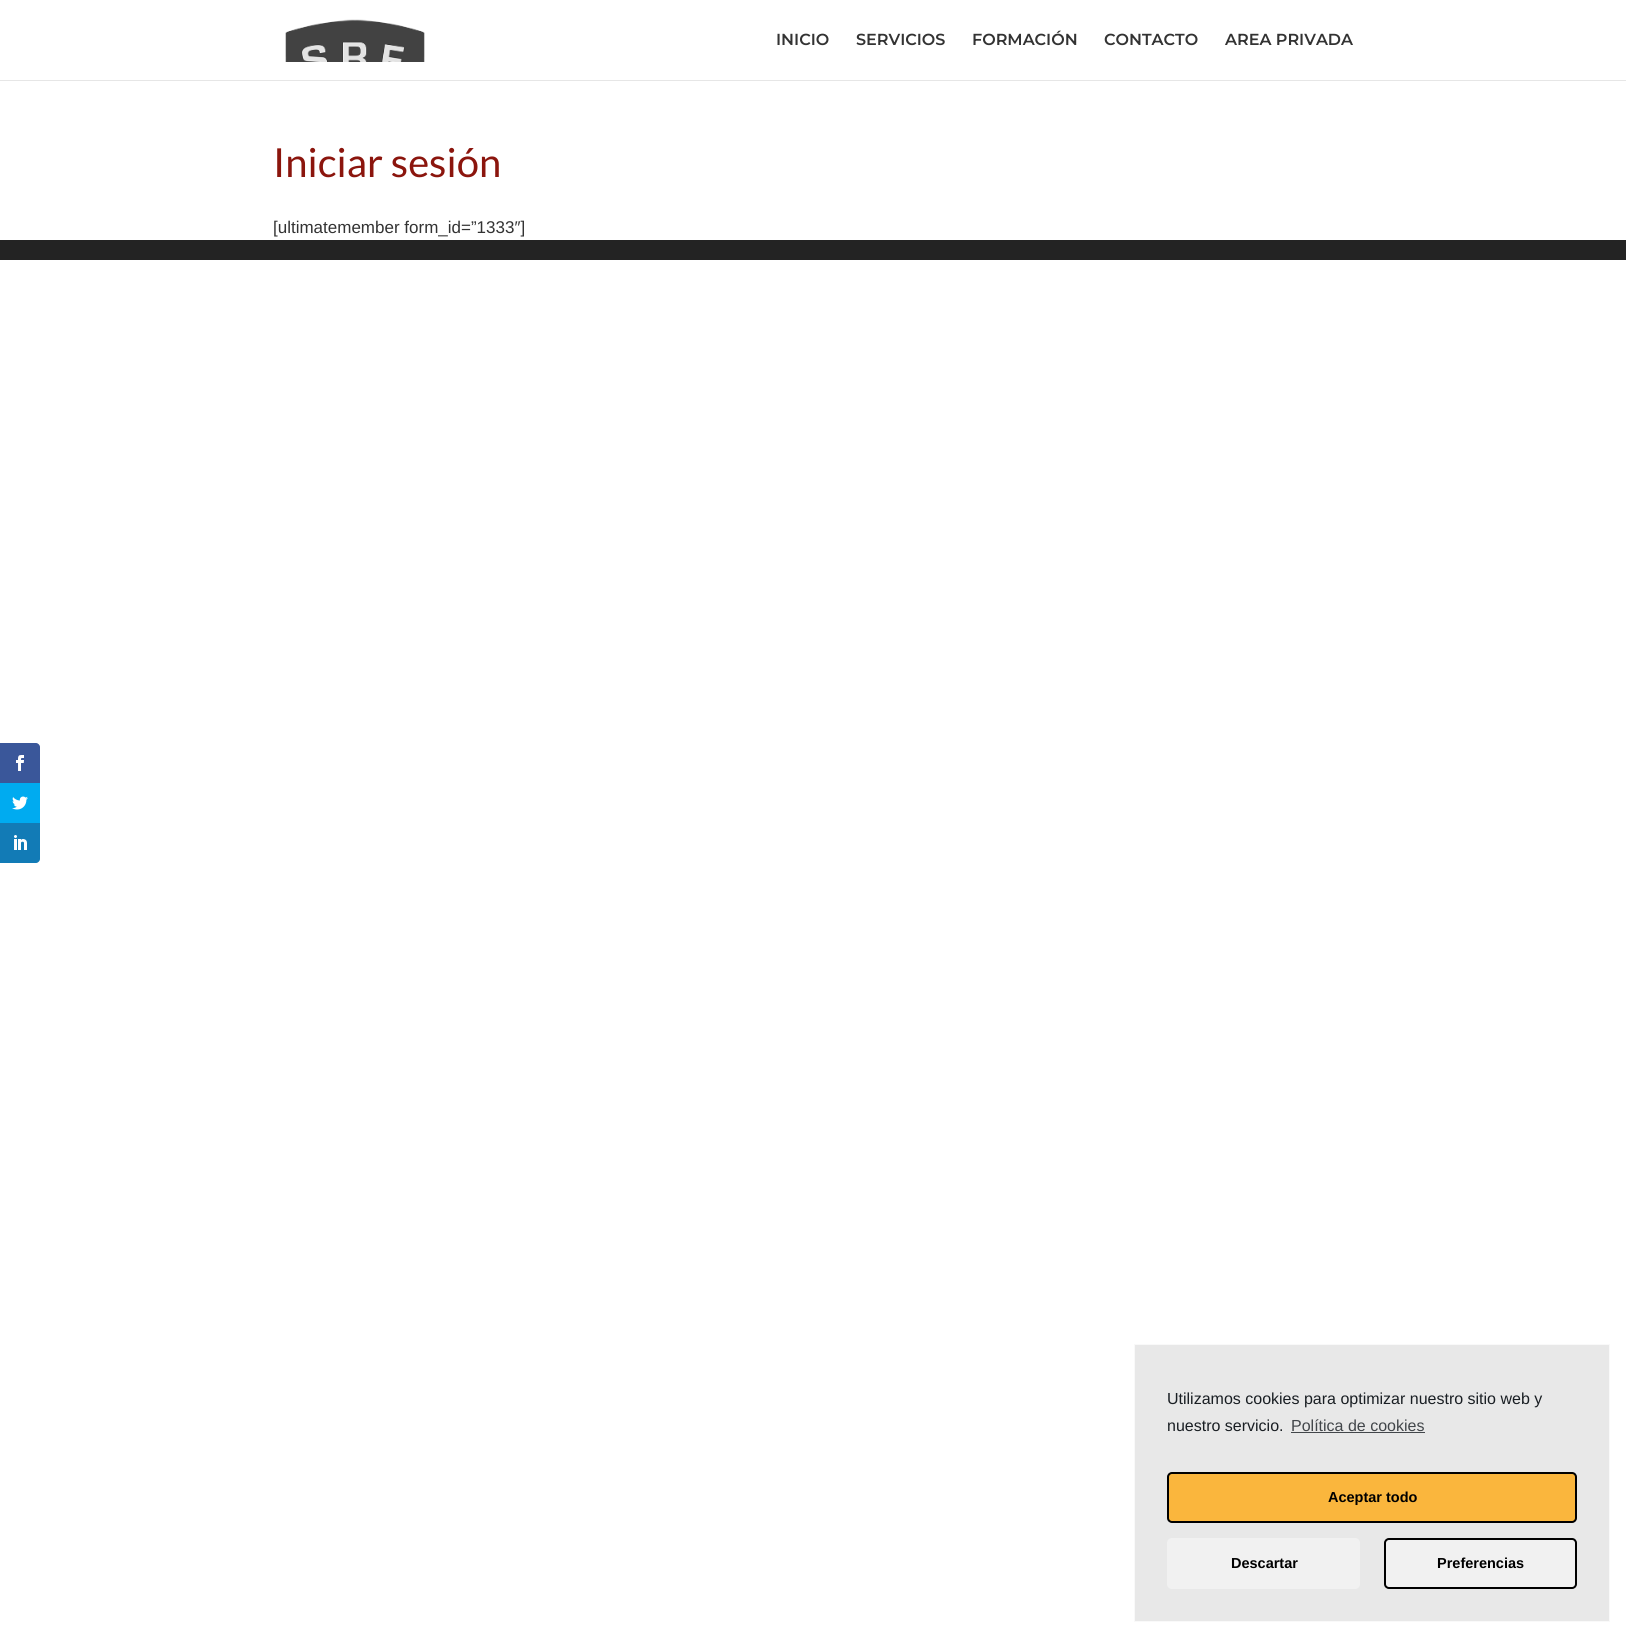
#include <cairo/cairo.h>
#include <math.h>
#include <stddef.h>

static cairo_t *cr;

static void use_color(int r, int g, int b) {
  cairo_set_source_rgb(cr, r / 255.0, g / 255.0, b / 255.0);
}

static void text(double x, double y, const char *s, const char *family, double size, int italic, int bold, int r, int g, int b) {
  cairo_select_font_face(cr, family, italic ? CAIRO_FONT_SLANT_ITALIC : CAIRO_FONT_SLANT_NORMAL,
    bold ? CAIRO_FONT_WEIGHT_BOLD : CAIRO_FONT_WEIGHT_NORMAL);
  cairo_set_font_size(cr, size);
  use_color(r, g, b);
  cairo_move_to(cr, x, y);
  cairo_show_text(cr, s);
}

static void box(double x, double y, double w, double h, int r, int g, int b) {
  use_color(r, g, b);
  cairo_rectangle(cr, x, y, w, h);
  cairo_fill(cr);
}

static void round_rect(double x, double y, double w, double h, double r) {
  cairo_new_sub_path(cr);
  cairo_arc(cr, x + w - r, y + h - r, r, 0, M_PI / 2);
  cairo_arc(cr, x + r, y + h - r, r, M_PI / 2, M_PI);
  cairo_arc(cr, x + r, y + r, r, M_PI, 1.5 * M_PI);
  cairo_arc(cr, x + w - r, y + r, r, 1.5 * M_PI, 2 * M_PI);
  cairo_close_path(cr);
}

static void picture(const char *path, double x, double y, double w, double h) {
  cairo_surface_t *image = cairo_image_surface_create_from_png(path);
  cairo_save(cr);
  cairo_set_source_surface(cr, image, x, y);
  cairo_rectangle(cr, x, y, w, h);
  cairo_fill(cr);
  cairo_restore(cr);
  cairo_surface_destroy(image);
}

static void draw(void) {
  use_color(255, 255, 255);
  cairo_paint(cr);
  box(0, 80, 1626, 1, 230, 230, 230);
  picture("img_01.png", 285, 19, 140, 43);
  box(0, 240, 1626, 20, 35, 35, 35);
  use_color(58, 87, 154);
  cairo_new_path(cr);
  cairo_move_to(cr, 0, 743);
  cairo_line_to(cr, 36, 743);
  cairo_curve_to(cr, 38, 743, 40, 745, 40, 747);
  cairo_line_to(cr, 40, 783);
  cairo_line_to(cr, 0, 783);
  cairo_close_path(cr);
  cairo_fill(cr);
  picture("img_02.png", 16, 755, 8, 16);
  box(0, 783, 40, 40, 0, 171, 240);
  picture("img_03.png", 12, 796, 16, 14);
  use_color(18, 123, 182);
  cairo_new_path(cr);
  cairo_move_to(cr, 0, 823);
  cairo_line_to(cr, 40, 823);
  cairo_line_to(cr, 40, 859);
  cairo_curve_to(cr, 40, 861, 38, 863, 36, 863);
  cairo_line_to(cr, 0, 863);
  cairo_close_path(cr);
  cairo_fill(cr);
  picture("img_04.png", 14, 835, 13, 15);
  use_color(232, 232, 232);
  cairo_rectangle(cr, 1134.5, 1344.5, 475, 277);
  cairo_fill_preserve(cr);
  use_color(249, 249, 249);
  cairo_set_line_width(cr, 1);
  cairo_stroke(cr);
  box(1291, 1432, 134, 1, 66, 70, 74);
  use_color(250, 182, 61);
  round_rect(1168, 1473, 408, 49, 4);
  cairo_fill_preserve(cr);
  use_color(0, 0, 0);
  cairo_set_line_width(cr, 2);
  cairo_stroke(cr);
  use_color(241, 241, 241);
  round_rect(1167, 1538, 193, 51, 5);
  cairo_fill(cr);
  round_rect(1385, 1539, 191, 49, 4);
  cairo_fill_preserve(cr);
  use_color(0, 0, 0);
  cairo_stroke(cr);
  text(776, 45, "INICIO", "Montserrat Thin", 16, 0, 0, 51, 51, 51);
  text(856, 45, "SERVICIOS", "Montserrat Thin", 16, 0, 0, 51, 51, 51);
  text(972, 45, "FORMACIÓN", "Montserrat Thin", 16, 0, 0, 51, 51, 51);
  text(1104, 45, "CONTACTO", "Montserrat Thin", 16, 0, 0, 51, 51, 51);
  text(1225, 45, "AREA PRIVADA", "Montserrat Thin", 16, 0, 0, 51, 51, 51);
  text(273, 177, "Iniciar sesión", "Lato", 40, 0, 0, 139, 21, 13);
  text(273, 233, "[ultimatemember form_id=”1333″]", "Liberation Sans", 17, 0, 0, 51, 51, 51);
  text(1167, 1404, "Utilizamos cookies para optimizar nuestro sitio web y", "Liberation Sans", 16, 0, 0, 25, 30, 35);
  text(1167, 1431, "nuestro servicio.", "Liberation Sans", 16, 0, 0, 25, 30, 35);
  text(1291, 1431, "Política de cookies", "Liberation Sans", 16, 0, 0, 66, 70, 74);
  text(1328, 1502, "Aceptar todo", "Liberation Sans", 14.5, 0, 1, 0, 0, 0);
  text(1231, 1568, "Descartar", "Liberation Sans", 14.5, 0, 1, 0, 0, 0);
  text(1437, 1568, "Preferencias", "Liberation Sans", 14.5, 0, 1, 0, 0, 0);
}

int main(void) {
  cairo_surface_t *surface = cairo_image_surface_create(CAIRO_FORMAT_RGB24, 1626, 1638);
  cr = cairo_create(surface);
  cairo_font_options_t *options = cairo_font_options_create();
  cairo_font_options_set_hint_metrics(options, CAIRO_HINT_METRICS_OFF);
  cairo_font_options_set_hint_style(options, CAIRO_HINT_STYLE_NONE);
  cairo_set_font_options(cr, options);
  cairo_set_miter_limit(cr, 4);
  draw();
  cairo_surface_write_to_png(surface, "out.png");
  cairo_font_options_destroy(options);
  cairo_destroy(cr);
  cairo_surface_destroy(surface);
  return 0;
}
